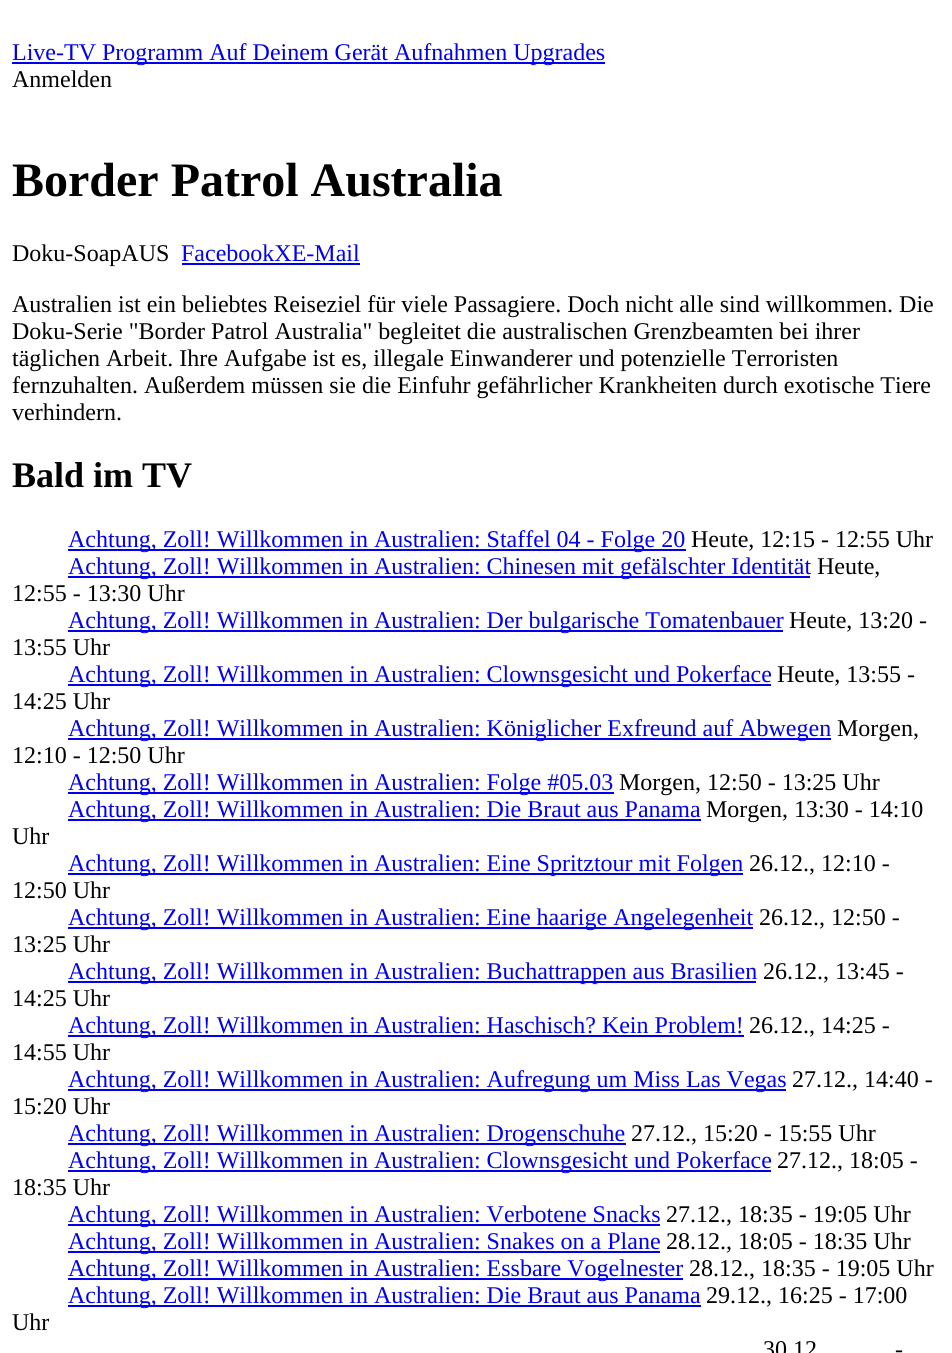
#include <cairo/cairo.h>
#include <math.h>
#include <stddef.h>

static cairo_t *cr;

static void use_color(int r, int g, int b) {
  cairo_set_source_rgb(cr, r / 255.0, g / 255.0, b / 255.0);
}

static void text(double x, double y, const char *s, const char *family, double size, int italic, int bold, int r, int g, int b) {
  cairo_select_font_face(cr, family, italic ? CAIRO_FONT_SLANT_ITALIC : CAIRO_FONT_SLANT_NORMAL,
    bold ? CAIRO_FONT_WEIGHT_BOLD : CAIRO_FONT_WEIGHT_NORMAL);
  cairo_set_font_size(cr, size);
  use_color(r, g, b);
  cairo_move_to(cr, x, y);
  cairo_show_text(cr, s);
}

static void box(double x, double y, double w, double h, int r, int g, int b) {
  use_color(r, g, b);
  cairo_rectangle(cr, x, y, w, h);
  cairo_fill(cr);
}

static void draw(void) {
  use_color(255, 255, 255);
  cairo_paint(cr);
  box(12, 62, 593, 2, 0, 0, 238);
  box(182, 263, 178, 2, 0, 0, 238);
  box(68, 549, 618, 2, 0, 0, 238);
  box(68, 576, 742, 2, 0, 0, 238);
  box(68, 630, 715, 2, 0, 0, 238);
  box(68, 684, 703, 2, 0, 0, 238);
  box(68, 738, 763, 2, 0, 0, 238);
  box(68, 792, 546, 2, 0, 0, 238);
  box(68, 819, 633, 2, 0, 0, 238);
  box(68, 873, 675, 2, 0, 0, 238);
  box(68, 927, 685, 2, 0, 0, 238);
  box(68, 981, 688, 2, 0, 0, 238);
  box(68, 1035, 676, 2, 0, 0, 238);
  box(68, 1089, 718, 2, 0, 0, 238);
  box(68, 1143, 558, 2, 0, 0, 238);
  box(68, 1170, 703, 2, 0, 0, 238);
  box(68, 1224, 592, 2, 0, 0, 238);
  box(68, 1251, 592, 2, 0, 0, 238);
  box(68, 1278, 615, 2, 0, 0, 238);
  box(68, 1305, 633, 2, 0, 0, 238);
  text(12, 60, "Live-TV Programm Auf Deinem Gerät Aufnahmen Upgrades", "Liberation Serif", 24, 0, 0, 0, 0, 238);
  text(12, 87, "Anmelden", "Liberation Serif", 24, 0, 0, 0, 0, 0);
  text(12, 196, "Border Patrol Australia", "Liberation Serif", 48, 0, 1, 0, 0, 0);
  text(12, 261, "Doku-SoapAUS", "Liberation Serif", 24, 0, 0, 0, 0, 0);
  text(181, 261, "FacebookXE-Mail", "Liberation Serif", 24, 0, 0, 0, 0, 238);
  text(12, 312, "Australien ist ein beliebtes Reiseziel für viele Passagiere. Doch nicht alle sind willkommen. Die", "Liberation Serif", 24, 0, 0, 0, 0, 0);
  text(12, 339, "Doku-Serie \"Border Patrol Australia\" begleitet die australischen Grenzbeamten bei ihrer", "Liberation Serif", 24, 0, 0, 0, 0, 0);
  text(12, 366, "täglichen Arbeit. Ihre Aufgabe ist es, illegale Einwanderer und potenzielle Terroristen", "Liberation Serif", 24, 0, 0, 0, 0, 0);
  text(12, 393, "fernzuhalten. Außerdem müssen sie die Einfuhr gefährlicher Krankheiten durch exotische Tiere", "Liberation Serif", 24, 0, 0, 0, 0, 0);
  text(12, 420, "verhindern.", "Liberation Serif", 24, 0, 0, 0, 0, 0);
  text(12, 487, "Bald im TV", "Liberation Serif", 36, 0, 1, 0, 0, 0);
  text(68, 547, "Achtung, Zoll! Willkommen in Australien: Staffel 04 - Folge 20", "Liberation Serif", 24, 0, 0, 0, 0, 238);
  text(691, 547, "Heute, 12:15 - 12:55 Uhr", "Liberation Serif", 24, 0, 0, 0, 0, 0);
  text(68, 574, "Achtung, Zoll! Willkommen in Australien: Chinesen mit gefälschter Identität", "Liberation Serif", 24, 0, 0, 0, 0, 238);
  text(817, 574, "Heute,", "Liberation Serif", 24, 0, 0, 0, 0, 0);
  text(12, 601, "12:55 - 13:30 Uhr", "Liberation Serif", 24, 0, 0, 0, 0, 0);
  text(68, 628, "Achtung, Zoll! Willkommen in Australien: Der bulgarische Tomatenbauer", "Liberation Serif", 24, 0, 0, 0, 0, 238);
  text(789, 628, "Heute, 13:20 -", "Liberation Serif", 24, 0, 0, 0, 0, 0);
  text(12, 655, "13:55 Uhr", "Liberation Serif", 24, 0, 0, 0, 0, 0);
  text(68, 682, "Achtung, Zoll! Willkommen in Australien: Clownsgesicht und Pokerface", "Liberation Serif", 24, 0, 0, 0, 0, 238);
  text(777, 682, "Heute, 13:55 -", "Liberation Serif", 24, 0, 0, 0, 0, 0);
  text(12, 709, "14:25 Uhr", "Liberation Serif", 24, 0, 0, 0, 0, 0);
  text(68, 736, "Achtung, Zoll! Willkommen in Australien: Königlicher Exfreund auf Abwegen", "Liberation Serif", 24, 0, 0, 0, 0, 238);
  text(837, 736, "Morgen,", "Liberation Serif", 24, 0, 0, 0, 0, 0);
  text(12, 763, "12:10 - 12:50 Uhr", "Liberation Serif", 24, 0, 0, 0, 0, 0);
  text(68, 790, "Achtung, Zoll! Willkommen in Australien: Folge #05.03", "Liberation Serif", 24, 0, 0, 0, 0, 238);
  text(619, 790, "Morgen, 12:50 - 13:25 Uhr", "Liberation Serif", 24, 0, 0, 0, 0, 0);
  text(68, 817, "Achtung, Zoll! Willkommen in Australien: Die Braut aus Panama", "Liberation Serif", 24, 0, 0, 0, 0, 238);
  text(706, 817, "Morgen, 13:30 - 14:10", "Liberation Serif", 24, 0, 0, 0, 0, 0);
  text(12, 844, "Uhr", "Liberation Serif", 24, 0, 0, 0, 0, 0);
  text(68, 871, "Achtung, Zoll! Willkommen in Australien: Eine Spritztour mit Folgen", "Liberation Serif", 24, 0, 0, 0, 0, 238);
  text(749, 871, "26.12., 12:10 -", "Liberation Serif", 24, 0, 0, 0, 0, 0);
  text(12, 898, "12:50 Uhr", "Liberation Serif", 24, 0, 0, 0, 0, 0);
  text(68, 925, "Achtung, Zoll! Willkommen in Australien: Eine haarige Angelegenheit", "Liberation Serif", 24, 0, 0, 0, 0, 238);
  text(759, 925, "26.12., 12:50 -", "Liberation Serif", 24, 0, 0, 0, 0, 0);
  text(12, 952, "13:25 Uhr", "Liberation Serif", 24, 0, 0, 0, 0, 0);
  text(68, 979, "Achtung, Zoll! Willkommen in Australien: Buchattrappen aus Brasilien", "Liberation Serif", 24, 0, 0, 0, 0, 238);
  text(763, 979, "26.12., 13:45 -", "Liberation Serif", 24, 0, 0, 0, 0, 0);
  text(12, 1006, "14:25 Uhr", "Liberation Serif", 24, 0, 0, 0, 0, 0);
  text(68, 1033, "Achtung, Zoll! Willkommen in Australien: Haschisch? Kein Problem!", "Liberation Serif", 24, 0, 0, 0, 0, 238);
  text(749, 1033, "26.12., 14:25 -", "Liberation Serif", 24, 0, 0, 0, 0, 0);
  text(12, 1060, "14:55 Uhr", "Liberation Serif", 24, 0, 0, 0, 0, 0);
  text(68, 1087, "Achtung, Zoll! Willkommen in Australien: Aufregung um Miss Las Vegas", "Liberation Serif", 24, 0, 0, 0, 0, 238);
  text(792, 1087, "27.12., 14:40 -", "Liberation Serif", 24, 0, 0, 0, 0, 0);
  text(12, 1114, "15:20 Uhr", "Liberation Serif", 24, 0, 0, 0, 0, 0);
  text(68, 1141, "Achtung, Zoll! Willkommen in Australien: Drogenschuhe", "Liberation Serif", 24, 0, 0, 0, 0, 238);
  text(631, 1141, "27.12., 15:20 - 15:55 Uhr", "Liberation Serif", 24, 0, 0, 0, 0, 0);
  text(68, 1168, "Achtung, Zoll! Willkommen in Australien: Clownsgesicht und Pokerface", "Liberation Serif", 24, 0, 0, 0, 0, 238);
  text(777, 1168, "27.12., 18:05 -", "Liberation Serif", 24, 0, 0, 0, 0, 0);
  text(12, 1195, "18:35 Uhr", "Liberation Serif", 24, 0, 0, 0, 0, 0);
  text(68, 1222, "Achtung, Zoll! Willkommen in Australien: Verbotene Snacks", "Liberation Serif", 24, 0, 0, 0, 0, 238);
  text(666, 1222, "27.12., 18:35 - 19:05 Uhr", "Liberation Serif", 24, 0, 0, 0, 0, 0);
  text(68, 1249, "Achtung, Zoll! Willkommen in Australien: Snakes on a Plane", "Liberation Serif", 24, 0, 0, 0, 0, 238);
  text(666, 1249, "28.12., 18:05 - 18:35 Uhr", "Liberation Serif", 24, 0, 0, 0, 0, 0);
  text(68, 1276, "Achtung, Zoll! Willkommen in Australien: Essbare Vogelnester", "Liberation Serif", 24, 0, 0, 0, 0, 238);
  text(689, 1276, "28.12., 18:35 - 19:05 Uhr", "Liberation Serif", 24, 0, 0, 0, 0, 0);
  text(68, 1303, "Achtung, Zoll! Willkommen in Australien: Die Braut aus Panama", "Liberation Serif", 24, 0, 0, 0, 0, 238);
  text(706, 1303, "29.12., 16:25 - 17:00", "Liberation Serif", 24, 0, 0, 0, 0, 0);
  text(12, 1330, "Uhr", "Liberation Serif", 24, 0, 0, 0, 0, 0);
  text(763, 1357, "30.12", "Liberation Serif", 24, 0, 0, 0, 0, 0);
  text(895, 1357, "-", "Liberation Serif", 24, 0, 0, 0, 0, 0);
}

int main(void) {
  cairo_surface_t *surface = cairo_image_surface_create(CAIRO_FORMAT_RGB24, 952, 1353);
  cr = cairo_create(surface);
  cairo_font_options_t *options = cairo_font_options_create();
  cairo_font_options_set_hint_metrics(options, CAIRO_HINT_METRICS_OFF);
  cairo_font_options_set_hint_style(options, CAIRO_HINT_STYLE_NONE);
  cairo_set_font_options(cr, options);
  cairo_set_miter_limit(cr, 4);
  draw();
  cairo_surface_write_to_png(surface, "out.png");
  cairo_font_options_destroy(options);
  cairo_destroy(cr);
  cairo_surface_destroy(surface);
  return 0;
}
